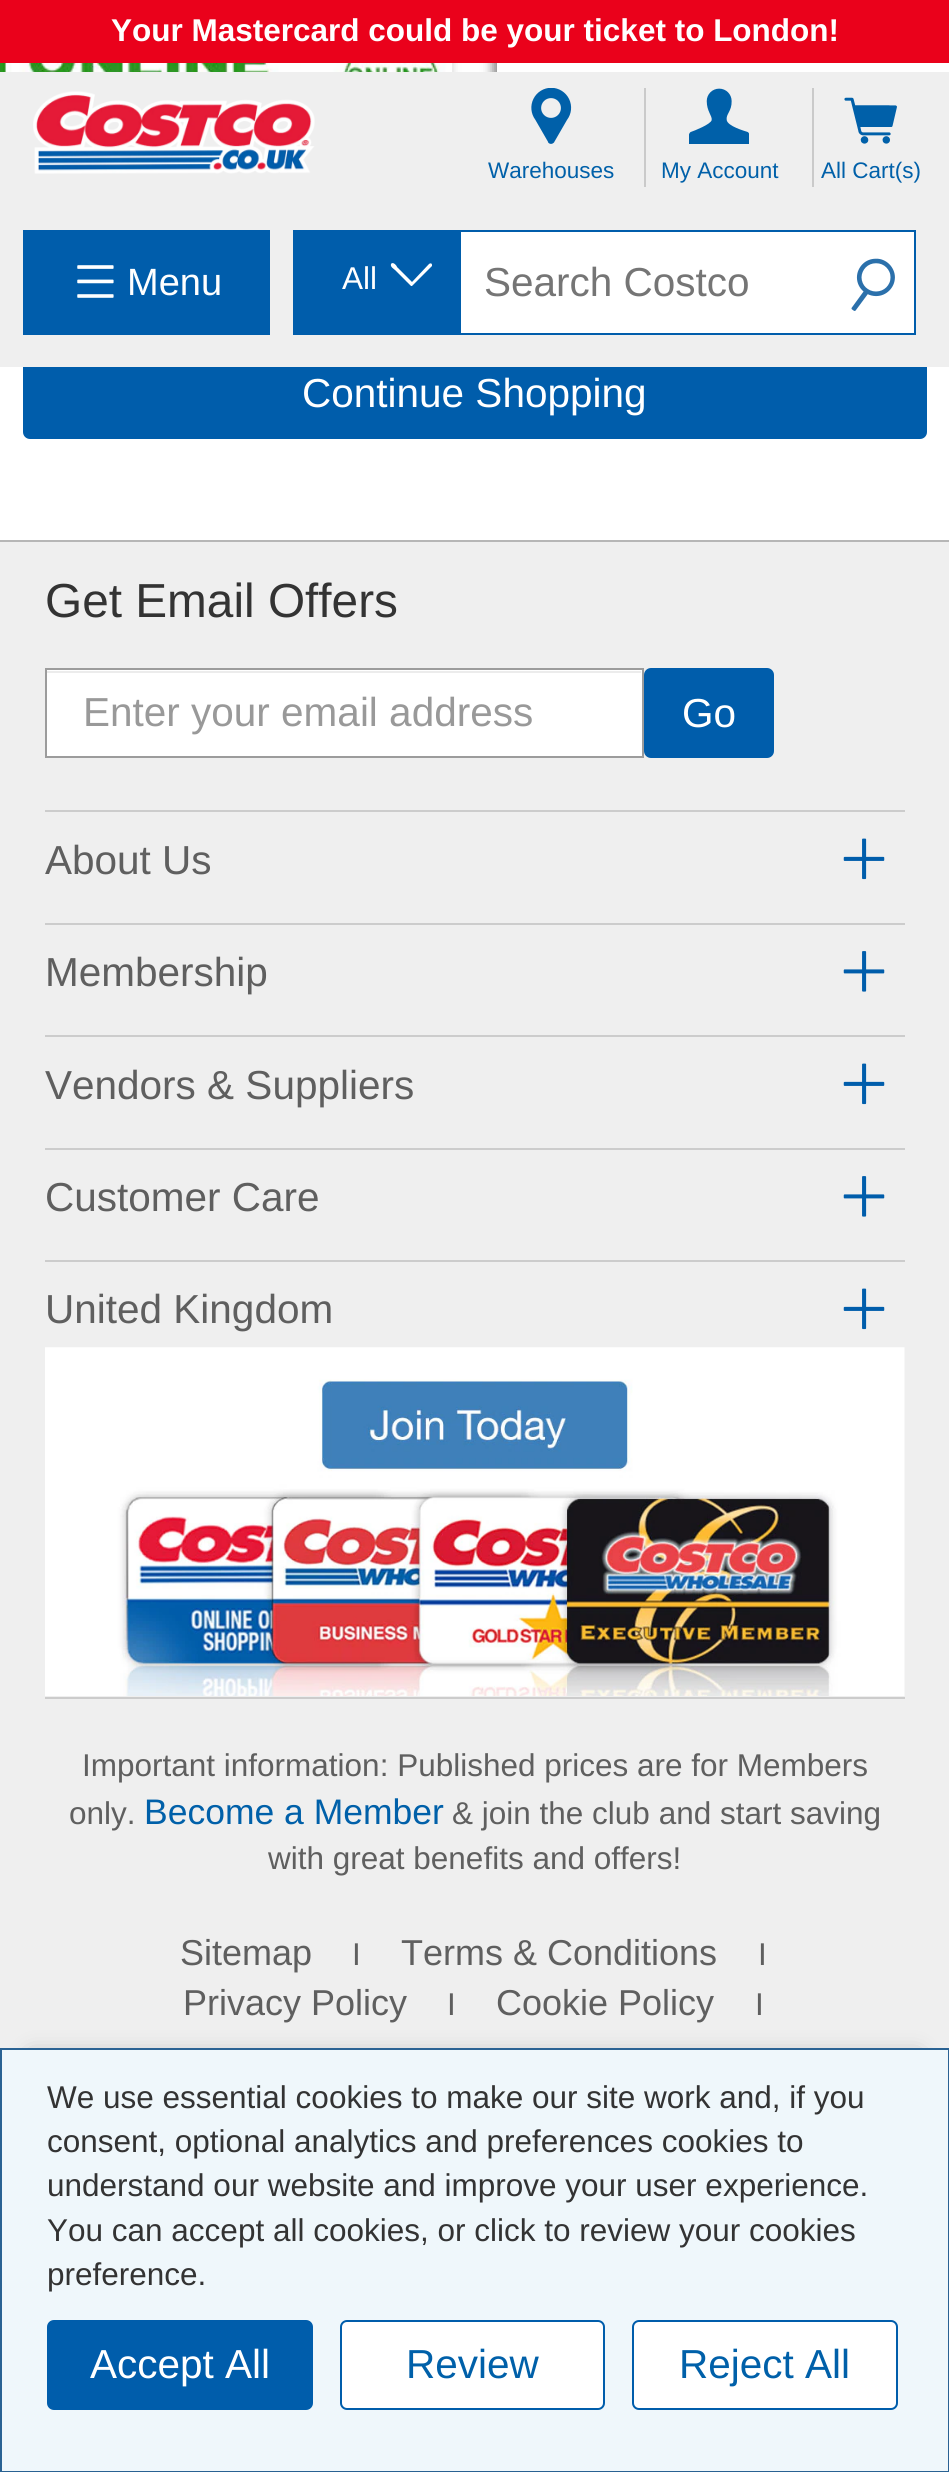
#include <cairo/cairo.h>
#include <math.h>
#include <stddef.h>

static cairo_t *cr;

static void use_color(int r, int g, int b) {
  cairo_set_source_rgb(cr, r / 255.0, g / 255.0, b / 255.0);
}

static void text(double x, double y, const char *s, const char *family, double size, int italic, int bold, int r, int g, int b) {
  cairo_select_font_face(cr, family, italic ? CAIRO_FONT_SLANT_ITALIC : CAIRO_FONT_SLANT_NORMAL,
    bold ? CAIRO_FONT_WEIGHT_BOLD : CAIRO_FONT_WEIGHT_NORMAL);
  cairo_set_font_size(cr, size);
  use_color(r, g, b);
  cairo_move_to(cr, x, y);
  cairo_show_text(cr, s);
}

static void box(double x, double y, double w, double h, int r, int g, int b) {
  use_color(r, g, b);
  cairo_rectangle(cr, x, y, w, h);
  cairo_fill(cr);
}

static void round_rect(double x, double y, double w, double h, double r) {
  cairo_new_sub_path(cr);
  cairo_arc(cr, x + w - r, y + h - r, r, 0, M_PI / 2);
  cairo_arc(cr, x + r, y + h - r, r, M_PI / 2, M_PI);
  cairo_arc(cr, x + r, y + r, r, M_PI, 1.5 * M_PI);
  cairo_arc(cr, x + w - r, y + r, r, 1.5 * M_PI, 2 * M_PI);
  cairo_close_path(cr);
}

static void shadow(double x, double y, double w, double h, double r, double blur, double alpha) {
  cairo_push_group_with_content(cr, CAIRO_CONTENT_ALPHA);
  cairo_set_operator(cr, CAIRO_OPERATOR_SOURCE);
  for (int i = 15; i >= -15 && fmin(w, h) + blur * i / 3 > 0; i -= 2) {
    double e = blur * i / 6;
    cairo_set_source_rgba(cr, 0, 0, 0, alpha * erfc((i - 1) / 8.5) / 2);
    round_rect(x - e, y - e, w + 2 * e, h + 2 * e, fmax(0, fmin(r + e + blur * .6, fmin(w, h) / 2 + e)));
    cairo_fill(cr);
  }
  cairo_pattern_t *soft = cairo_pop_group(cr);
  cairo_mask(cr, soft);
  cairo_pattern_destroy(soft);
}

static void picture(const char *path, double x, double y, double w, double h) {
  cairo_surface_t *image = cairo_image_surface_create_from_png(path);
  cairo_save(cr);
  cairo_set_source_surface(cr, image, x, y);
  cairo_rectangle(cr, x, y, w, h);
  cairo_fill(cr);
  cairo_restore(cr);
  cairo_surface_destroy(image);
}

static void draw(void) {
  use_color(255, 255, 255);
  cairo_paint(cr);
  use_color(0, 0, 0);
  shadow(-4, 34, 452, 166, 0, 5.5, 0.5);
  cairo_save(cr);
  cairo_set_fill_rule(cr, CAIRO_FILL_RULE_EVEN_ODD);
  cairo_new_path(cr);
  cairo_move_to(cr, 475, 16);
  cairo_line_to(cr, 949, 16);
  cairo_line_to(cr, 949, 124);
  cairo_line_to(cr, 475, 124);
  cairo_close_path(cr);
  cairo_move_to(cr, 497, 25);
  cairo_line_to(cr, 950, 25);
  cairo_line_to(cr, 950, 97);
  cairo_line_to(cr, 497, 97);
  cairo_close_path(cr);
  cairo_clip(cr);
  shadow(493, 34, 452, 72, 0, 5.5, 0.5);
  cairo_restore(cr);
  box(0, 0, 949, 63, 234, 1, 27);
  use_color(0, 93, 171);
  round_rect(24, 350, 902, 88, 6);
  cairo_fill_preserve(cr);
  cairo_stroke(cr);
  box(0, 72, 949, 295, 239, 239, 239);
  picture("img_01.png", 33, 91, 282, 83);
  box(644, 88, 2, 99, 202, 202, 202);
  picture("img_02.png", 531, 88, 41, 56);
  box(812, 88, 2, 99, 202, 202, 202);
  picture("img_03.png", 689, 88, 60, 56);
  picture("img_04.png", 844, 97, 53, 47);
  box(23, 230, 247, 105, 0, 93, 171);
  picture("img_05.png", 77, 265, 37, 33);
  box(461, 232, 453, 101, 255, 255, 255);
  cairo_rectangle(cr, 294, 231, 621, 103);
  use_color(0, 93, 171);
  cairo_stroke(cr);
  box(295, 232, 166, 101, 0, 93, 171);
  use_color(255, 255, 255);
  cairo_new_path(cr);
  cairo_move_to(cr, 429, 264);
  cairo_curve_to(cr, 430, 263, 432, 263, 432, 265);
  cairo_line_to(cr, 432, 266);
  cairo_line_to(cr, 412, 286);
  cairo_line_to(cr, 411, 286);
  cairo_line_to(cr, 395, 270);
  cairo_curve_to(cr, 394, 269, 390, 267, 391, 264);
  cairo_curve_to(cr, 393, 261, 397, 266, 397, 267);
  cairo_line_to(cr, 412, 282);
  cairo_close_path(cr);
  cairo_fill(cr);
  picture("img_06.png", 851, 258, 44, 53);
  box(0, 542, 949, 1506, 239, 239, 239);
  use_color(156, 156, 156);
  shadow(32, 2057, 886, 362, 0, 11, 1);
  use_color(239, 247, 251);
  cairo_rectangle(cr, 1, 2049, 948, 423);
  cairo_fill_preserve(cr);
  use_color(42, 98, 147);
  cairo_stroke(cr);
  use_color(0, 93, 171);
  round_rect(48, 2321, 264, 88, 6);
  cairo_fill_preserve(cr);
  cairo_stroke(cr);
  use_color(255, 255, 255);
  round_rect(341, 2321, 263, 88, 6);
  cairo_fill_preserve(cr);
  use_color(0, 93, 171);
  cairo_stroke(cr);
  use_color(255, 255, 255);
  round_rect(633, 2321, 264, 88, 6);
  cairo_fill_preserve(cr);
  use_color(0, 93, 171);
  cairo_stroke(cr);
  picture("img_07.png", 0, 63, 453, 9);
  box(0, 540, 949, 2, 182, 182, 182);
  box(47, 670, 595, 86, 255, 255, 255);
  box(47, 671, 594, 2, 236, 236, 236);
  cairo_rectangle(cr, 46, 669, 597, 88);
  use_color(156, 156, 156);
  cairo_stroke(cr);
  use_color(0, 93, 171);
  round_rect(645, 669, 128, 88, 6);
  cairo_fill_preserve(cr);
  cairo_stroke(cr);
  box(45, 1697, 860, 2, 204, 204, 204);
  box(45, 810, 860, 2, 204, 204, 204);
  picture("img_08.png", 843, 838, 42, 42);
  box(45, 923, 860, 2, 204, 204, 204);
  picture("img_09.png", 843, 951, 42, 41);
  box(45, 1035, 860, 2, 204, 204, 204);
  picture("img_08.png", 843, 1063, 42, 42);
  box(45, 1148, 860, 2, 204, 204, 204);
  picture("img_09.png", 843, 1176, 42, 41);
  box(45, 1260, 860, 2, 204, 204, 204);
  picture("img_08.png", 843, 1288, 42, 42);
  picture("img_10.png", 45, 1347, 860, 349);
  text(111, 41, "Your Mastercard could be your ticket to London!", "Liberation Sans", 31.5, 0, 1, 255, 255, 255);
  text(488, 178, "Warehouses", "Liberation Sans", 22.5, 0, 0, 0, 96, 169);
  text(661, 178, "My Account", "Liberation Sans", 22.5, 0, 0, 0, 96, 169);
  text(821, 178, "All Cart(s)", "Liberation Sans", 22.5, 0, 0, 0, 96, 169);
  text(127, 295, "Menu", "Liberation Sans", 38, 0, 0, 255, 255, 255);
  text(342, 289, "All", "Liberation Sans", 31.5, 0, 0, 255, 255, 255);
  text(484, 296, "Search Costco", "Liberation Sans", 40.5, 0, 0, 117, 117, 117);
  text(47, 2108, "We use essential cookies to make our site work and, if you", "Liberation Sans", 31.5, 0, 0, 51, 51, 51);
  text(47, 2152, "consent, optional analytics and preferences cookies to", "Liberation Sans", 31.5, 0, 0, 51, 51, 51);
  text(47, 2196, "understand our website and improve your user experience.", "Liberation Sans", 31.5, 0, 0, 51, 51, 51);
  text(47, 2241, "You can accept all cookies, or click to review your cookies", "Liberation Sans", 31.5, 0, 0, 51, 51, 51);
  text(47, 2285, "preference.", "Liberation Sans", 31.5, 0, 0, 51, 51, 51);
  text(90, 2378, "Accept All", "Liberation Sans", 40.5, 0, 0, 255, 255, 255);
  text(406, 2378, "Review", "Liberation Sans", 40.5, 0, 0, 0, 96, 169);
  text(679, 2378, "Reject All", "Liberation Sans", 40.5, 0, 0, 0, 96, 169);
  text(302, 407, "Continue Shopping", "Liberation Sans", 40.5, 0, 0, 255, 255, 255);
  text(45, 617, "Get Email Offers", "Liberation Sans", 47.75, 0, 0, 51, 51, 51);
  text(83, 726, "Enter your email address", "Liberation Sans", 40.5, 0, 0, 153, 153, 153);
  text(682, 727, "Go", "Liberation Sans", 40.5, 0, 0, 255, 255, 255);
  text(45, 874, "About Us", "Liberation Sans", 40.5, 0, 0, 95, 95, 95);
  text(45, 986, "Membership", "Liberation Sans", 40.5, 0, 0, 95, 95, 95);
  text(45, 1099, "Vendors & Suppliers", "Liberation Sans", 40.5, 0, 0, 95, 95, 95);
  text(45, 1211, "Customer Care", "Liberation Sans", 40.5, 0, 0, 95, 95, 95);
  text(45, 1323, "United Kingdom", "Liberation Sans", 40.5, 0, 0, 95, 95, 95);
  text(82, 1776, "Important information: Published prices are for Members", "Liberation Sans", 31.5, 0, 0, 95, 95, 95);
  text(69, 1824, "only.", "Liberation Sans", 31.5, 0, 0, 95, 95, 95);
  text(144, 1824, "Become a Member", "Liberation Sans", 35.5, 0, 0, 0, 96, 169);
  text(452, 1824, "& join the club and start saving", "Liberation Sans", 31.5, 0, 0, 95, 95, 95);
  text(268, 1869, "with great benefits and offers!", "Liberation Sans", 31.5, 0, 0, 95, 95, 95);
  text(180, 1965, "Sitemap", "Liberation Sans", 36, 0, 0, 95, 95, 95);
  text(352, 1965, "I", "Liberation Sans", 31.5, 0, 0, 95, 95, 95);
  text(401, 1965, "Terms & Conditions", "Liberation Sans", 36, 0, 0, 95, 95, 95);
  text(758, 1965, "I", "Liberation Sans", 31.5, 0, 0, 95, 95, 95);
  text(183, 2015, "Privacy Policy", "Liberation Sans", 36, 0, 0, 95, 95, 95);
  text(447, 2015, "I", "Liberation Sans", 31.5, 0, 0, 95, 95, 95);
  text(496, 2015, "Cookie Policy", "Liberation Sans", 36, 0, 0, 95, 95, 95);
  text(755, 2015, "I", "Liberation Sans", 31.5, 0, 0, 95, 95, 95);
}

int main(void) {
  cairo_surface_t *surface = cairo_image_surface_create(CAIRO_FORMAT_RGB24, 949, 2472);
  cr = cairo_create(surface);
  cairo_font_options_t *options = cairo_font_options_create();
  cairo_font_options_set_hint_metrics(options, CAIRO_HINT_METRICS_OFF);
  cairo_font_options_set_hint_style(options, CAIRO_HINT_STYLE_NONE);
  cairo_set_font_options(cr, options);
  cairo_set_miter_limit(cr, 4);
  draw();
  cairo_surface_write_to_png(surface, "out.png");
  cairo_font_options_destroy(options);
  cairo_destroy(cr);
  cairo_surface_destroy(surface);
  return 0;
}
